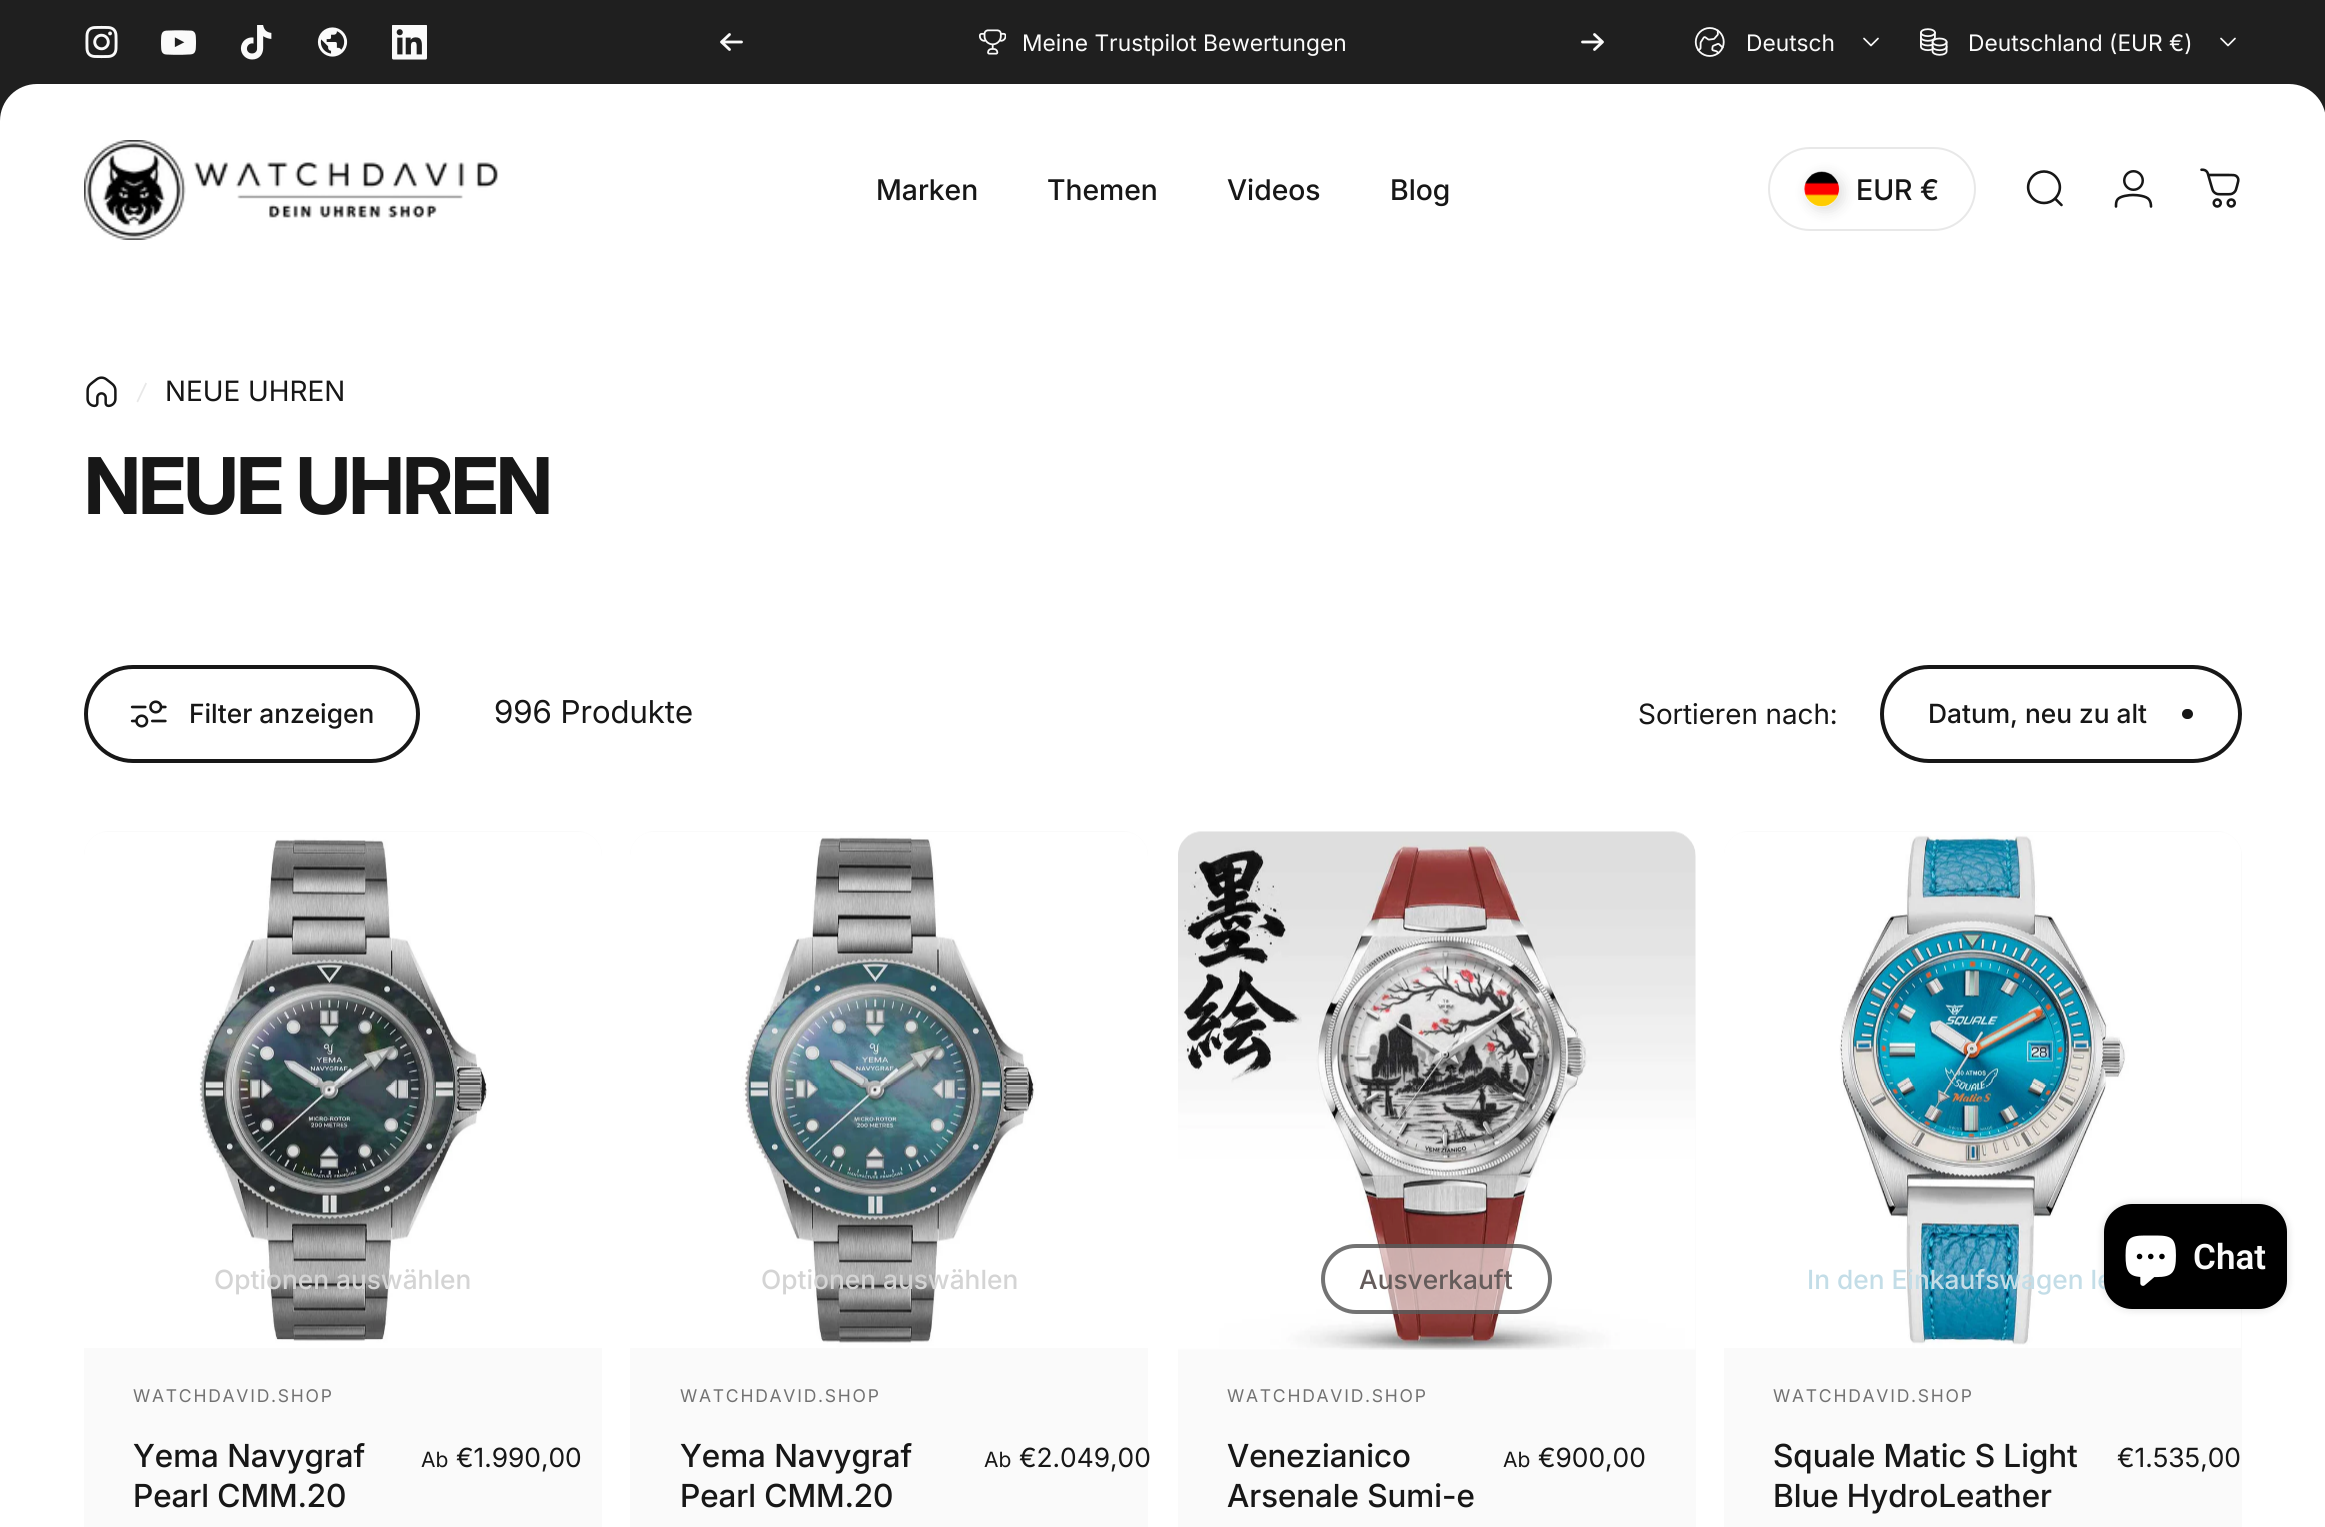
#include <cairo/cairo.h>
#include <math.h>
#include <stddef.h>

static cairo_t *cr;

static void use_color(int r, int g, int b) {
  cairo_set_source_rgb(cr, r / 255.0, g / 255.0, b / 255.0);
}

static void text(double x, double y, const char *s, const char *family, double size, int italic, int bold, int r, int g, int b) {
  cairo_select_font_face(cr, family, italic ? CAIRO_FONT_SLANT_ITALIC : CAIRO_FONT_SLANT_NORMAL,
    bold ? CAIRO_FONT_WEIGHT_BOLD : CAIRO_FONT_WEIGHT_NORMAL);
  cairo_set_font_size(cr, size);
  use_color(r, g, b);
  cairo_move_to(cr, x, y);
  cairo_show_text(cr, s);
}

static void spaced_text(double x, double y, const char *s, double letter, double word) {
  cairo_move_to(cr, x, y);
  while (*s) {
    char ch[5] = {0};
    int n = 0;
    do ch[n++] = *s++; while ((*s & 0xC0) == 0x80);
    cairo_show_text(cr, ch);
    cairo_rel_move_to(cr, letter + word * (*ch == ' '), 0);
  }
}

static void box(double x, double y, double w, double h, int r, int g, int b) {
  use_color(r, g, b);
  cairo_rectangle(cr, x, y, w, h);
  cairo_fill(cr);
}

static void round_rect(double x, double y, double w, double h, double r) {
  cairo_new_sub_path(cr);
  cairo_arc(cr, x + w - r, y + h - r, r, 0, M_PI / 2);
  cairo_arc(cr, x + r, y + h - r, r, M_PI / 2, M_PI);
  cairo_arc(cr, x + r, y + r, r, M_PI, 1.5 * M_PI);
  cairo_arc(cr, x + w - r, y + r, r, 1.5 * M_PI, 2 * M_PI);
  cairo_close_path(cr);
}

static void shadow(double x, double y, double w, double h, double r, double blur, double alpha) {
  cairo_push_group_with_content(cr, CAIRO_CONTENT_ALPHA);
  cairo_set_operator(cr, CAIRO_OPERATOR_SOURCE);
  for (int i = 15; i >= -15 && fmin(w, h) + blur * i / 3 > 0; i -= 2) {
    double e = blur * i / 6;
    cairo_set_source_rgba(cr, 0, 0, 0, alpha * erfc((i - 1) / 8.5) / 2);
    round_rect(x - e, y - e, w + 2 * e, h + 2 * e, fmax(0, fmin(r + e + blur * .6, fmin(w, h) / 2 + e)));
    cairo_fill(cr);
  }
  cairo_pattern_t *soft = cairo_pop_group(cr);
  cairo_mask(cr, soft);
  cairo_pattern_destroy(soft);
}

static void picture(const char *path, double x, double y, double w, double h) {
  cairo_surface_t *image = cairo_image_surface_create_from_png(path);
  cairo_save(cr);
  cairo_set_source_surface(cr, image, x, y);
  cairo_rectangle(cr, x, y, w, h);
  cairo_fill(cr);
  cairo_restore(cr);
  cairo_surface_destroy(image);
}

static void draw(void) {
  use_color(255, 255, 255);
  cairo_paint(cr);
  box(0, 0, 2325, 37, 31, 31, 31);
  cairo_new_path(cr);
  cairo_move_to(cr, 37, 0);
  cairo_line_to(cr, 2289, 0);
  cairo_curve_to(cr, 2309.5, 0, 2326, 16.5, 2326, 37);
  cairo_line_to(cr, 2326, 121);
  cairo_line_to(cr, 0, 121);
  cairo_line_to(cr, 0, 37);
  cairo_curve_to(cr, 0, 16.5, 16.5, 0, 37, 0);
  cairo_close_path(cr);
  cairo_fill(cr);
  picture("img_01.png", 85, 25, 33, 34);
  picture("img_02.png", 161, 30, 35, 25);
  picture("img_03.png", 240, 25, 32, 35);
  picture("img_04.png", 317, 27, 31, 30);
  picture("img_05.png", 392, 25, 35, 35);
  cairo_new_path(cr);
  cairo_move_to(cr, 729.5, 34.5);
  cairo_line_to(cr, 721.5, 42);
  cairo_move_to(cr, 721.5, 42);
  cairo_line_to(cr, 729.5, 49.5);
  cairo_move_to(cr, 721.5, 42);
  cairo_line_to(cr, 741.5, 42);
  use_color(250, 250, 250);
  cairo_set_line_width(cr, 2.8);
  cairo_set_line_cap(cr, CAIRO_LINE_CAP_ROUND);
  cairo_set_line_join(cr, CAIRO_LINE_JOIN_ROUND);
  cairo_stroke(cr);
  picture("img_06.png", 978, 29, 28, 26);
  cairo_new_path(cr);
  cairo_move_to(cr, 1582.5, 42);
  cairo_line_to(cr, 1602.5, 42);
  cairo_move_to(cr, 1602.5, 42);
  cairo_line_to(cr, 1594.5, 34.5);
  cairo_move_to(cr, 1602.5, 42);
  cairo_line_to(cr, 1594.5, 49.5);
  cairo_stroke(cr);
  picture("img_07.png", 1694, 27, 31, 30);
  cairo_new_path(cr);
  cairo_move_to(cr, 1864, 38.5);
  cairo_line_to(cr, 1871, 45.5);
  cairo_line_to(cr, 1878, 38.5);
  cairo_set_line_width(cr, 1.7);
  cairo_stroke(cr);
  picture("img_08.png", 1920, 28, 28, 28);
  cairo_new_path(cr);
  cairo_move_to(cr, 2221, 38.5);
  cairo_line_to(cr, 2228, 45.5);
  cairo_line_to(cr, 2235, 38.5);
  cairo_stroke(cr);
  use_color(255, 255, 255);
  cairo_new_path(cr);
  cairo_move_to(cr, 37, 84);
  cairo_line_to(cr, 2289, 84);
  cairo_curve_to(cr, 2309.5, 84, 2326, 100.5, 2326, 121);
  cairo_line_to(cr, 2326, 296);
  cairo_line_to(cr, 0, 296);
  cairo_line_to(cr, 0, 121);
  cairo_curve_to(cr, 0, 100.5, 16.5, 84, 37, 84);
  cairo_close_path(cr);
  cairo_fill(cr);
  picture("img_09.png", 84, 140, 415, 100);
  round_rect(1769, 148, 206, 82, 41);
  use_color(232, 232, 232);
  cairo_set_line_width(cr, 2);
  cairo_set_line_cap(cr, CAIRO_LINE_CAP_BUTT);
  cairo_set_line_join(cr, CAIRO_LINE_JOIN_MITER);
  cairo_stroke(cr);
  use_color(23, 23, 23);
  shadow(1808, 175, 35, 35, 17.5, 7, 0.15);
  use_color(250, 250, 250);
  cairo_arc(cr, 1821.5, 189.5, 17.5, 0, 2 * M_PI);
  cairo_fill(cr);
  picture("img_10.png", 1804, 171, 36, 36);
  cairo_new_path(cr);
  cairo_move_to(cr, 2061.5, 205);
  cairo_line_to(cr, 2055, 198.5);
  cairo_move_to(cr, 2055, 198.5);
  cairo_curve_to(cr, 2061.5, 192, 2061.5, 182.5, 2055, 176);
  cairo_curve_to(cr, 2049, 170, 2039, 170, 2033, 176);
  cairo_curve_to(cr, 2026.5, 182.5, 2026.5, 192, 2033, 198.5);
  cairo_curve_to(cr, 2039, 204.5, 2049, 204.5, 2055, 198.5);
  cairo_close_path(cr);
  use_color(23, 23, 23);
  cairo_set_line_width(cr, 2.6);
  cairo_set_line_cap(cr, CAIRO_LINE_CAP_ROUND);
  cairo_stroke(cr);
  cairo_arc(cr, 2133.5, 180.5, 9.25, 0, 2 * M_PI);
  cairo_set_line_width(cr, 2.5);
  cairo_set_line_cap(cr, CAIRO_LINE_CAP_BUTT);
  cairo_stroke(cr);
  cairo_new_path(cr);
  cairo_move_to(cr, 2133, 195);
  cairo_curve_to(cr, 2137.5, 195, 2146.5, 196, 2149, 199.5);
  cairo_curve_to(cr, 2150.5, 201.5, 2151, 204, 2151, 206.5);
  cairo_move_to(cr, 2133, 195);
  cairo_curve_to(cr, 2129, 195, 2120, 196, 2117.5, 199.5);
  cairo_curve_to(cr, 2116, 201.5, 2116, 204, 2116, 206.5);
  cairo_set_line_width(cr, 2.6);
  cairo_set_line_cap(cr, CAIRO_LINE_CAP_ROUND);
  cairo_stroke(cr);
  picture("img_11.png", 2200, 168, 40, 40);
  picture("img_12.png", 86, 376, 31, 32);
  use_color(232, 232, 232);
  cairo_new_path(cr);
  cairo_move_to(cr, 145.5, 382.5);
  cairo_line_to(cr, 147, 383.5);
  cairo_line_to(cr, 138, 402.5);
  cairo_line_to(cr, 136.5, 401.5);
  cairo_close_path(cr);
  cairo_fill(cr);
  round_rect(86, 667, 332, 94, 47);
  use_color(23, 23, 23);
  cairo_set_line_width(cr, 4);
  cairo_set_line_cap(cr, CAIRO_LINE_CAP_BUTT);
  cairo_stroke(cr);
  picture("img_13.png", 130, 700, 37, 28);
  round_rect(1882, 667, 358, 94, 47);
  cairo_stroke(cr);
  round_rect(2182, 709, 11, 10, 5);
  cairo_fill(cr);
  use_color(250, 250, 250);
  round_rect(84, 831, 518, 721, 25);
  cairo_fill(cr);
  picture("img_14.png", 84, 832, 518, 516);
  round_rect(630, 831, 518, 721, 25);
  cairo_fill(cr);
  picture("img_15.png", 630, 832, 518, 516);
  round_rect(1178, 831, 518, 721, 25);
  cairo_fill(cr);
  picture("img_16.png", 1178, 831, 518, 519);
  cairo_set_source_rgba(cr, 1, 1, 1, 0.6);
  round_rect(1321, 1244, 231, 70, 35);
  cairo_fill(cr);
  round_rect(1323, 1246, 227, 66, 33);
  cairo_set_source_rgba(cr, 0.09, 0.09, 0.09, 0.6);
  cairo_stroke(cr);
  use_color(250, 250, 250);
  round_rect(1724, 831, 518, 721, 25);
  cairo_fill(cr);
  picture("img_17.png", 1724, 832, 517, 516);
  use_color(0, 0, 0);
  shadow(2104, 1204, 183, 105, 28, 4.5, 0.15);
  text(1022, 51, "Meine Trustpilot Bewertungen", "Inter", 22.75, 0, 0, 250, 250, 250);
  text(1746, 51, "Deutsch", "Inter", 22.75, 0, 0, 250, 250, 250);
  text(1968, 51, "Deutschland (EUR €)", "Inter", 22.75, 0, 0, 250, 250, 250);
  text(876, 200, "Marken", "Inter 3 Medium", 28.5, 0, 0, 23, 23, 23);
  text(1047, 200, "Themen", "Inter 3 Medium", 28.5, 0, 0, 23, 23, 23);
  text(1227, 200, "Videos", "Inter 3 Medium", 28.5, 0, 0, 23, 23, 23);
  text(1390, 200, "Blog", "Inter 3 Medium", 28.5, 0, 0, 23, 23, 23);
  text(1856, 200, "EUR €", "Inter 3 Medium", 28.5, 0, 0, 23, 23, 23);
  text(165, 401, "NEUE UHREN", "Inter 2", 28, 0, 0, 23, 23, 23);
  cairo_select_font_face(cr, "Inter", CAIRO_FONT_SLANT_NORMAL, CAIRO_FONT_WEIGHT_BOLD);
  cairo_set_font_size(cr, 78.25);
  spaced_text(84, 514, "NEUE UHREN", -2.4, 0);
  text(189, 723, "Filter anzeigen", "Inter 2 Medium", 26.4, 0, 0, 23, 23, 23);
  text(494, 723, "996 Produkte", "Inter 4", 31.5, 0, 0, 23, 23, 23);
  text(1638, 724, "Sortieren nach:", "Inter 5", 28, 0, 0, 23, 23, 23);
  text(1928, 723, "Datum, neu zu alt", "Inter 2 Medium", 26.4, 0, 0, 23, 23, 23);
  text(214, 1289, "Optionen auswählen", "Inter 2 Medium", 26.4, 0, 0, 212, 212, 212);
  cairo_select_font_face(cr, "Inter", CAIRO_FONT_SLANT_NORMAL, CAIRO_FONT_WEIGHT_NORMAL);
  cairo_set_font_size(cr, 17.5);
  use_color(114, 114, 114);
  spaced_text(133, 1402, "WATCHDAVID.SHOP", 1.75, 0);
  text(133, 1467, "Yema Navygraf", "Inter Medium", 31.75, 0, 0, 23, 23, 23);
  text(133, 1507, "Pearl CMM.20", "Inter Medium", 31.75, 0, 0, 23, 23, 23);
  text(421, 1467, "Ab", "Inter", 21, 0, 0, 23, 23, 23);
  text(456, 1467, "€1.990,00", "Inter 3", 26.4, 0, 0, 23, 23, 23);
  text(761, 1289, "Optionen auswählen", "Inter 2 Medium", 26.4, 0, 0, 212, 212, 212);
  cairo_select_font_face(cr, "Inter", CAIRO_FONT_SLANT_NORMAL, CAIRO_FONT_WEIGHT_NORMAL);
  cairo_set_font_size(cr, 17.5);
  use_color(114, 114, 114);
  spaced_text(680, 1402, "WATCHDAVID.SHOP", 1.75, 0);
  text(680, 1467, "Yema Navygraf", "Inter Medium", 31.75, 0, 0, 23, 23, 23);
  text(680, 1507, "Pearl CMM.20", "Inter Medium", 31.75, 0, 0, 23, 23, 23);
  text(984, 1467, "Ab", "Inter", 21, 0, 0, 23, 23, 23);
  text(1019, 1467, "€2.049,00", "Inter 3", 26.4, 0, 0, 23, 23, 23);
  text(1359, 1289, "Ausverkauft", "Inter 2 Medium", 26.4, 0, 0, 101, 92, 91);
  cairo_select_font_face(cr, "Inter", CAIRO_FONT_SLANT_NORMAL, CAIRO_FONT_WEIGHT_NORMAL);
  cairo_set_font_size(cr, 17.5);
  use_color(114, 114, 114);
  spaced_text(1227, 1402, "WATCHDAVID.SHOP", 1.75, 0);
  text(1227, 1467, "Venezianico", "Inter Medium", 31.75, 0, 0, 23, 23, 23);
  text(1227, 1507, "Arsenale Sumi-e", "Inter Medium", 31.75, 0, 0, 23, 23, 23);
  text(1503, 1467, "Ab", "Inter", 21, 0, 0, 23, 23, 23);
  text(1538, 1467, "€900,00", "Inter 3", 26.4, 0, 0, 23, 23, 23);
  text(1807, 1289, "In den Einkaufswagen le", "Inter 2 Medium", 26.4, 0, 0, 195, 221, 231);
  cairo_select_font_face(cr, "Inter", CAIRO_FONT_SLANT_NORMAL, CAIRO_FONT_WEIGHT_NORMAL);
  cairo_set_font_size(cr, 17.5);
  use_color(114, 114, 114);
  spaced_text(1773, 1402, "WATCHDAVID.SHOP", 1.75, 0);
  text(1773, 1467, "Squale Matic S Light", "Inter Medium", 31.75, 0, 0, 23, 23, 23);
  text(1773, 1507, "Blue HydroLeather", "Inter Medium", 31.75, 0, 0, 23, 23, 23);
  text(2117, 1467, "€1.535,00", "Inter 3", 26.4, 0, 0, 23, 23, 23);
  use_color(0, 0, 0);
  round_rect(2104, 1204, 183, 105, 28);
  cairo_fill(cr);
  picture("img_18.png", 2125, 1235, 51, 51);
  text(2193, 1269, "Chat", "Roboto SemiBold", 35, 0, 0, 250, 250, 250);
}

int main(void) {
  cairo_surface_t *surface = cairo_image_surface_create(CAIRO_FORMAT_RGB24, 2325, 1527);
  cr = cairo_create(surface);
  cairo_font_options_t *options = cairo_font_options_create();
  cairo_font_options_set_hint_metrics(options, CAIRO_HINT_METRICS_OFF);
  cairo_font_options_set_hint_style(options, CAIRO_HINT_STYLE_NONE);
  cairo_set_font_options(cr, options);
  cairo_set_miter_limit(cr, 4);
  draw();
  cairo_surface_write_to_png(surface, "out.png");
  cairo_font_options_destroy(options);
  cairo_destroy(cr);
  cairo_surface_destroy(surface);
  return 0;
}
